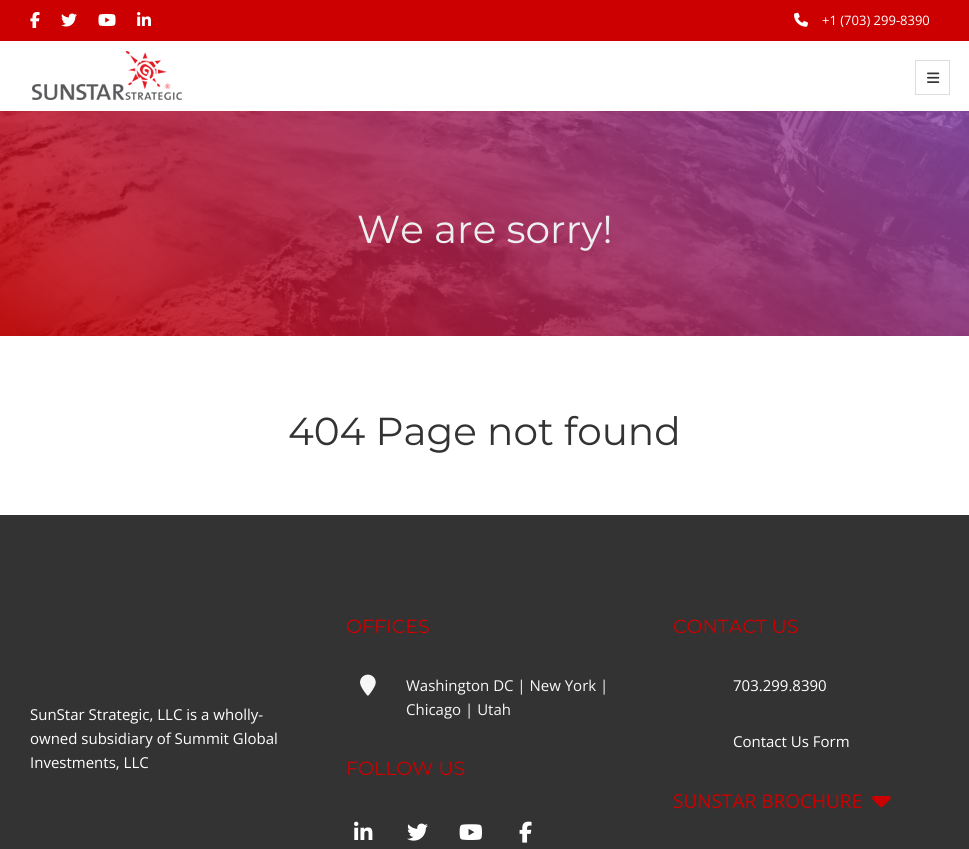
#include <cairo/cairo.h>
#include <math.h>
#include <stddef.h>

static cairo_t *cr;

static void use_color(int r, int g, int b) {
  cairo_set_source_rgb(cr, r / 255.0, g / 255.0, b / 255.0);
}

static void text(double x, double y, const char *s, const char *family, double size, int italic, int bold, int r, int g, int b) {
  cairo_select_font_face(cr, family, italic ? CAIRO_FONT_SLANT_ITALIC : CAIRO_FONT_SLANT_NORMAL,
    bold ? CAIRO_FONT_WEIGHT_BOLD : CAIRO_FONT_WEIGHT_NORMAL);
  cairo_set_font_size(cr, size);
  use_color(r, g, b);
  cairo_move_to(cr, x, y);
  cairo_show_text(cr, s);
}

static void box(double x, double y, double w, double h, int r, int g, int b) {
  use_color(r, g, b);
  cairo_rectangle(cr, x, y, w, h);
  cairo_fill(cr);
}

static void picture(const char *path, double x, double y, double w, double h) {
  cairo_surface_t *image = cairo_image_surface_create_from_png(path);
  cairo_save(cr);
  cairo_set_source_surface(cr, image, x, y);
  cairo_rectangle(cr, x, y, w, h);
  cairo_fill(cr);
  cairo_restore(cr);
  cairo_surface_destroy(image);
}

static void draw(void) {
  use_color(255, 255, 255);
  cairo_paint(cr);
  box(0, 0, 969, 41, 204, 0, 0);
  picture("img_01.png", 30, 12, 10, 16);
  picture("img_02.png", 61, 13, 16, 14);
  picture("img_03.png", 98, 14, 18, 12);
  picture("img_04.png", 137, 12, 14, 14);
  picture("img_05.png", 794, 12, 14, 15);
  picture("img_06.png", 32, 51, 150, 49);
  cairo_rectangle(cr, 915.5, 60.5, 34, 34);
  use_color(221, 221, 221);
  cairo_set_line_width(cr, 1);
  cairo_stroke(cr);
  picture("img_07.png", 927, 72, 13, 11);
  picture("img_08.png", 0, 111, 969, 225);
  box(0, 515, 969, 334, 51, 51, 51);
  picture("img_09.png", 360, 674, 16, 22);
  picture("img_10.png", 354, 821, 19, 19);
  picture("img_11.png", 407, 823, 21, 18);
  picture("img_12.png", 459, 824, 23, 16);
  picture("img_13.png", 519, 821, 13, 22);
  picture("img_14.png", 872, 796, 19, 12);
  text(822, 25, "+1 (703) 299-8390", "Open Sans", 13, 0, 0, 255, 255, 255);
  text(357, 243, "We are sorry!", "Montserrat", 39, 0, 0, 236, 238, 239);
  text(288, 445, "404 Page not found", "Montserrat", 39, 0, 0, 51, 51, 51);
  text(30, 720, "SunStar Strategic, LLC is a wholly-", "Open Sans", 15, 0, 0, 255, 255, 255);
  text(30, 744, "owned subsidiary of Summit Global", "Open Sans", 15, 0, 0, 255, 255, 255);
  text(30, 768, "Investments, LLC", "Open Sans", 15, 0, 0, 255, 255, 255);
  text(346, 633, "OFFICES", "Montserrat", 19, 0, 0, 204, 0, 0);
  text(406, 691, "Washington DC | New York |", "Open Sans", 15, 0, 0, 247, 247, 247);
  text(406, 715, "Chicago | Utah", "Open Sans", 15, 0, 0, 247, 247, 247);
  text(346, 775, "FOLLOW US", "Montserrat", 19, 0, 0, 204, 0, 0);
  text(673, 633, "CONTACT US", "Montserrat", 19, 0, 0, 204, 0, 0);
  text(733, 691, "703.299.8390", "Open Sans", 15, 0, 0, 255, 255, 255);
  text(733, 747, "Contact Us Form", "Open Sans", 15, 0, 0, 255, 255, 255);
  text(673, 808, "SUNSTAR BROCHURE", "Open Sans", 19, 0, 0, 204, 0, 0);
}

int main(void) {
  cairo_surface_t *surface = cairo_image_surface_create(CAIRO_FORMAT_RGB24, 969, 849);
  cr = cairo_create(surface);
  cairo_font_options_t *options = cairo_font_options_create();
  cairo_font_options_set_hint_metrics(options, CAIRO_HINT_METRICS_OFF);
  cairo_font_options_set_hint_style(options, CAIRO_HINT_STYLE_NONE);
  cairo_set_font_options(cr, options);
  cairo_set_miter_limit(cr, 4);
  draw();
  cairo_surface_write_to_png(surface, "out.png");
  cairo_font_options_destroy(options);
  cairo_destroy(cr);
  cairo_surface_destroy(surface);
  return 0;
}
